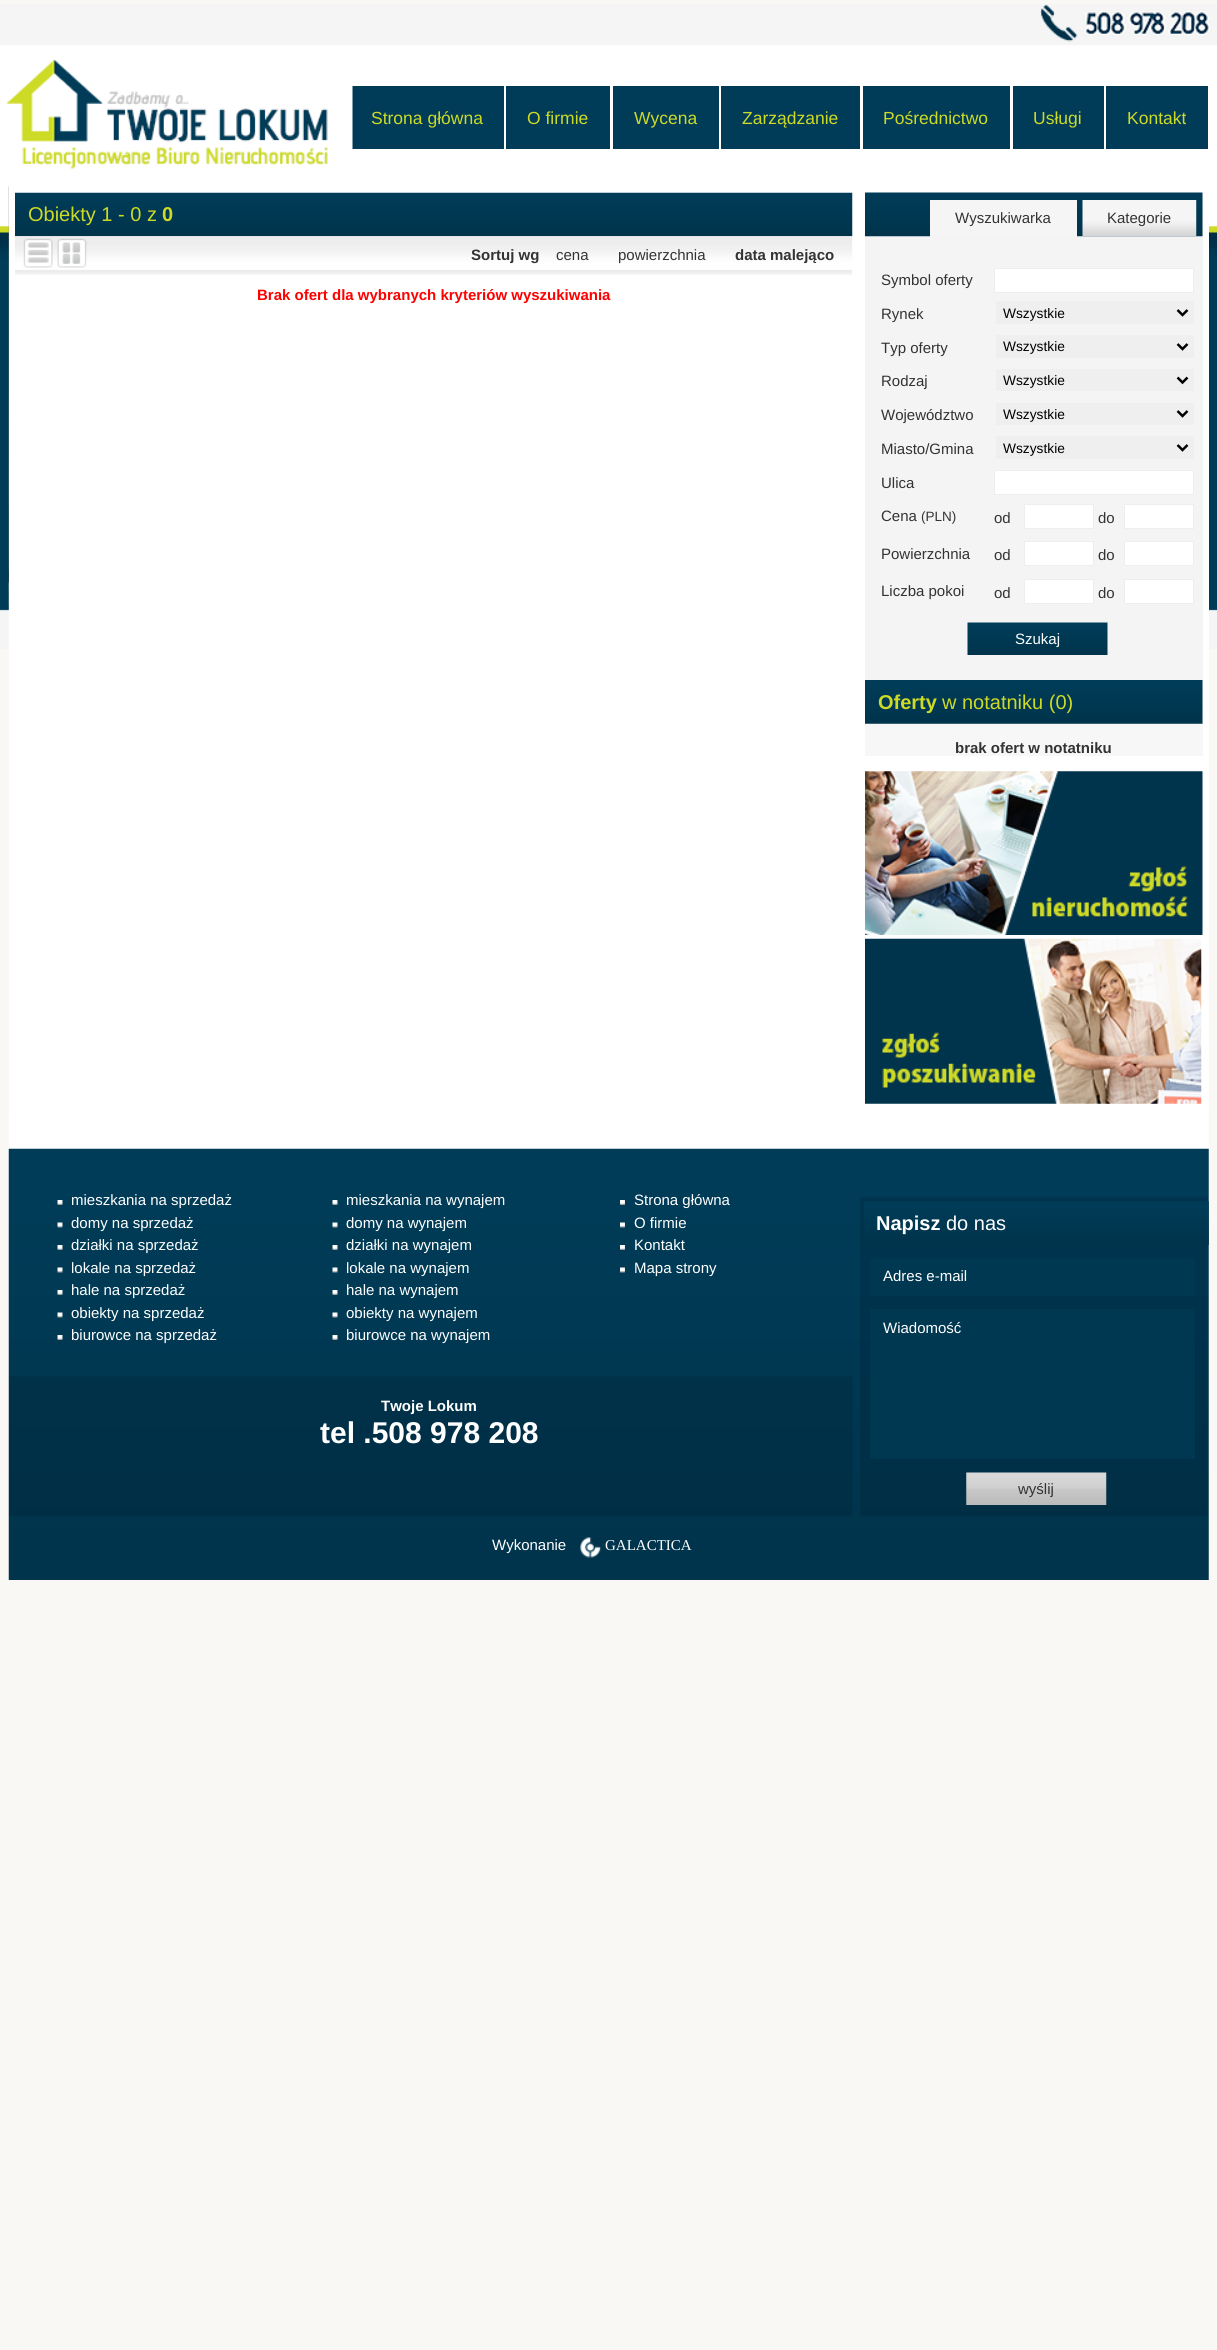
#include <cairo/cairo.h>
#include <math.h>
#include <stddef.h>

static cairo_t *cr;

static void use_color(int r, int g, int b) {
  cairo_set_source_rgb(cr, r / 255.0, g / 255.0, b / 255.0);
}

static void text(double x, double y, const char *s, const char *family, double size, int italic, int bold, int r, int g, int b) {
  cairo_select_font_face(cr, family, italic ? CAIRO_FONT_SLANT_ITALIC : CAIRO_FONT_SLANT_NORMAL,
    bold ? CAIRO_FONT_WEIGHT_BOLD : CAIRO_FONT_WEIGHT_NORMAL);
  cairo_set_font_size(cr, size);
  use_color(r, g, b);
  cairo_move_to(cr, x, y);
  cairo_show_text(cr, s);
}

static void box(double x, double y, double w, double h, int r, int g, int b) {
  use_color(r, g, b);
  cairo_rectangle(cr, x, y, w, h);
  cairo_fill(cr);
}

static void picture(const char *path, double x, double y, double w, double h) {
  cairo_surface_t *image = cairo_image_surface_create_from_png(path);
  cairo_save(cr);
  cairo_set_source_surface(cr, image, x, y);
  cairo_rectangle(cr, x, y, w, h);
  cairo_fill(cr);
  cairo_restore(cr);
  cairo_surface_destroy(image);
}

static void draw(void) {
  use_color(249, 248, 245);
  cairo_paint(cr);
  picture("img_01.png", 0, 4, 1217, 645);
  box(352, 86, 152, 63, 0, 60, 88);
  picture("img_02.png", 8, 86, 345, 63);
  box(506, 86, 104, 63, 0, 60, 88);
  box(613, 86, 106, 63, 0, 60, 88);
  box(721, 86, 139, 63, 0, 60, 88);
  box(863, 86, 147, 63, 0, 60, 88);
  box(1013, 86, 91, 63, 0, 60, 88);
  box(1106, 86, 102, 63, 0, 60, 88);
  box(9, 186, 1200, 922, 255, 255, 255);
  picture("img_03.png", 15, 192, 838, 45);
  picture("img_04.png", 15, 236, 838, 39);
  picture("img_05.png", 23, 238, 30, 30);
  picture("img_06.png", 57, 238, 30, 30);
  box(865, 193, 338, 487, 244, 244, 244);
  picture("img_07.png", 865, 192, 338, 45);
  box(930, 200, 147, 37, 245, 245, 245);
  picture("img_08.png", 1082, 200, 115, 37);
  use_color(255, 255, 255);
  cairo_rectangle(cr, 994.5, 268.5, 199, 24);
  cairo_fill_preserve(cr);
  use_color(238, 238, 238);
  cairo_set_line_width(cr, 1);
  cairo_stroke(cr);
  box(996, 301, 198, 23, 239, 239, 239);
  cairo_new_path(cr);
  cairo_move_to(cr, 1177.5, 310);
  cairo_line_to(cr, 1182.5, 315);
  cairo_line_to(cr, 1187.5, 310);
  use_color(0, 0, 0);
  cairo_set_line_width(cr, 2.5);
  cairo_stroke(cr);
  box(996, 335, 198, 23, 239, 239, 239);
  cairo_new_path(cr);
  cairo_move_to(cr, 1177.5, 344);
  cairo_line_to(cr, 1182.5, 349);
  cairo_line_to(cr, 1187.5, 344);
  use_color(0, 0, 0);
  cairo_stroke(cr);
  box(996, 369, 198, 22, 239, 239, 239);
  cairo_new_path(cr);
  cairo_move_to(cr, 1177.5, 377.5);
  cairo_line_to(cr, 1182.5, 382.5);
  cairo_line_to(cr, 1187.5, 377.5);
  use_color(0, 0, 0);
  cairo_stroke(cr);
  box(996, 403, 198, 22, 239, 239, 239);
  cairo_new_path(cr);
  cairo_move_to(cr, 1177.5, 411);
  cairo_line_to(cr, 1182.5, 416);
  cairo_line_to(cr, 1187.5, 411);
  use_color(0, 0, 0);
  cairo_stroke(cr);
  box(996, 436, 198, 23, 239, 239, 239);
  cairo_new_path(cr);
  cairo_move_to(cr, 1177.5, 445);
  cairo_line_to(cr, 1182.5, 450);
  cairo_line_to(cr, 1187.5, 445);
  use_color(0, 0, 0);
  cairo_stroke(cr);
  use_color(255, 255, 255);
  cairo_rectangle(cr, 994.5, 470.5, 199, 24);
  cairo_fill_preserve(cr);
  use_color(238, 238, 238);
  cairo_set_line_width(cr, 1);
  cairo_stroke(cr);
  use_color(255, 255, 255);
  cairo_rectangle(cr, 1024.5, 504.5, 69, 24);
  cairo_fill_preserve(cr);
  use_color(238, 238, 238);
  cairo_stroke(cr);
  use_color(255, 255, 255);
  cairo_rectangle(cr, 1124.5, 504.5, 69, 24);
  cairo_fill_preserve(cr);
  use_color(238, 238, 238);
  cairo_stroke(cr);
  use_color(255, 255, 255);
  cairo_rectangle(cr, 1024.5, 541.5, 69, 24);
  cairo_fill_preserve(cr);
  use_color(238, 238, 238);
  cairo_stroke(cr);
  use_color(255, 255, 255);
  cairo_rectangle(cr, 1124.5, 541.5, 69, 24);
  cairo_fill_preserve(cr);
  use_color(238, 238, 238);
  cairo_stroke(cr);
  use_color(255, 255, 255);
  cairo_rectangle(cr, 1024.5, 579.5, 69, 24);
  cairo_fill_preserve(cr);
  use_color(238, 238, 238);
  cairo_stroke(cr);
  use_color(255, 255, 255);
  cairo_rectangle(cr, 1124.5, 579.5, 69, 24);
  cairo_fill_preserve(cr);
  use_color(238, 238, 238);
  cairo_stroke(cr);
  picture("img_09.png", 967, 622, 141, 33);
  box(865, 680, 338, 76, 247, 247, 247);
  picture("img_10.png", 865, 680, 338, 44);
  picture("img_11.png", 865, 771, 338, 164);
  picture("img_12.png", 865, 938, 337, 166);
  picture("img_13.png", 8, 1108, 1201, 472);
  picture("img_14.png", 57, 1200, 6, 5);
  picture("img_15.png", 57, 1222, 6, 6);
  picture("img_14.png", 57, 1245, 6, 5);
  picture("img_16.png", 57, 1267, 6, 6);
  picture("img_17.png", 57, 1290, 6, 5);
  picture("img_18.png", 57, 1312, 6, 6);
  picture("img_19.png", 57, 1335, 6, 5);
  picture("img_14.png", 332, 1200, 6, 5);
  picture("img_15.png", 332, 1222, 6, 6);
  picture("img_14.png", 332, 1245, 6, 5);
  picture("img_16.png", 332, 1267, 6, 6);
  picture("img_17.png", 332, 1290, 6, 5);
  picture("img_18.png", 332, 1312, 6, 6);
  picture("img_19.png", 332, 1335, 6, 5);
  picture("img_20.png", 620, 1200, 5, 5);
  picture("img_21.png", 620, 1222, 5, 6);
  picture("img_20.png", 620, 1245, 5, 5);
  picture("img_22.png", 620, 1267, 5, 6);
  picture("img_23.png", 864, 1201, 345, 44);
  box(870, 1258, 325, 38, 0, 56, 82);
  box(870, 1309, 325, 150, 0, 56, 82);
  picture("img_24.png", 966, 1472, 141, 33);
  picture("img_25.png", 580, 1537, 21, 21);
  text(371, 124, "Strona główna", "Liberation Sans", 17.5, 0, 0, 205, 218, 38);
  text(527, 124, "O firmie", "Liberation Sans", 17.5, 0, 0, 205, 218, 38);
  text(634, 124, "Wycena", "Liberation Sans", 17.5, 0, 0, 205, 218, 38);
  text(742, 124, "Zarządzanie", "Liberation Sans", 17.5, 0, 0, 205, 218, 38);
  text(883, 124, "Pośrednictwo", "Liberation Sans", 17.5, 0, 0, 205, 218, 38);
  text(1033, 124, "Usługi", "Liberation Sans", 17.5, 0, 0, 205, 218, 38);
  text(1127, 124, "Kontakt", "Liberation Sans", 17.5, 0, 0, 205, 218, 38);
  text(28, 221, "Obiekty 1 - 0 z", "Liberation Sans", 20, 0, 0, 205, 218, 38);
  text(162, 221, "0", "Liberation Sans", 20, 0, 1, 205, 218, 38);
  text(471, 260, "Sortuj wg", "Liberation Sans", 15, 0, 1, 51, 51, 51);
  text(556, 260, "cena", "Liberation Sans", 15, 0, 0, 51, 51, 51);
  text(618, 260, "powierzchnia", "Liberation Sans", 15, 0, 0, 51, 51, 51);
  text(735, 260, "data malejąco", "Liberation Sans", 15, 0, 1, 51, 51, 51);
  text(257, 300, "Brak ofert dla wybranych kryteriów wyszukiwania", "Liberation Sans", 15, 0, 1, 255, 0, 0);
  text(955, 223, "Wyszukiwarka", "Liberation Sans", 15, 0, 0, 51, 51, 51);
  text(1107, 223, "Kategorie", "Liberation Sans", 15, 0, 0, 51, 51, 51);
  text(881, 285, "Symbol oferty", "Liberation Sans", 15, 0, 0, 51, 51, 51);
  text(881, 319, "Rynek", "Liberation Sans", 15, 0, 0, 51, 51, 51);
  text(1003, 318, "Wszystkie", "Liberation Sans", 13.75, 0, 0, 0, 0, 0);
  text(881, 353, "Typ oferty", "Liberation Sans", 15, 0, 0, 51, 51, 51);
  text(1003, 351, "Wszystkie", "Liberation Sans", 13.75, 0, 0, 0, 0, 0);
  text(881, 386, "Rodzaj", "Liberation Sans", 15, 0, 0, 51, 51, 51);
  text(1003, 385, "Wszystkie", "Liberation Sans", 13.75, 0, 0, 0, 0, 0);
  text(881, 420, "Województwo", "Liberation Sans", 15, 0, 0, 51, 51, 51);
  text(1003, 419, "Wszystkie", "Liberation Sans", 13.75, 0, 0, 0, 0, 0);
  text(881, 454, "Miasto/Gmina", "Liberation Sans", 15, 0, 0, 51, 51, 51);
  text(1003, 453, "Wszystkie", "Liberation Sans", 13.75, 0, 0, 0, 0, 0);
  text(881, 488, "Ulica", "Liberation Sans", 15, 0, 0, 51, 51, 51);
  text(881, 521, "Cena", "Liberation Sans", 15, 0, 0, 51, 51, 51);
  text(921, 521, "(PLN)", "Liberation Sans", 13.5, 0, 0, 51, 51, 51);
  text(994, 523, "od", "Liberation Sans", 15, 0, 0, 51, 51, 51);
  text(1098, 523, "do", "Liberation Sans", 15, 0, 0, 51, 51, 51);
  text(881, 559, "Powierzchnia", "Liberation Sans", 15, 0, 0, 51, 51, 51);
  text(994, 560, "od", "Liberation Sans", 15, 0, 0, 51, 51, 51);
  text(1098, 560, "do", "Liberation Sans", 15, 0, 0, 51, 51, 51);
  text(881, 596, "Liczba pokoi", "Liberation Sans", 15, 0, 0, 51, 51, 51);
  text(994, 598, "od", "Liberation Sans", 15, 0, 0, 51, 51, 51);
  text(1098, 598, "do", "Liberation Sans", 15, 0, 0, 51, 51, 51);
  text(1015, 644, "Szukaj", "Liberation Sans", 15, 0, 0, 255, 255, 255);
  text(878, 709, "Oferty", "Liberation Sans", 20, 0, 1, 205, 218, 38);
  text(942, 709, "w notatniku (0)", "Liberation Sans", 20, 0, 0, 205, 218, 38);
  text(955, 753, "brak ofert w notatniku", "Liberation Sans", 15, 0, 1, 51, 51, 51);
  text(71, 1205, "mieszkania na sprzedaż", "Liberation Sans", 15, 0, 0, 255, 255, 255);
  text(71, 1228, "domy na sprzedaż", "Liberation Sans", 15, 0, 0, 255, 255, 255);
  text(71, 1250, "działki na sprzedaż", "Liberation Sans", 15, 0, 0, 255, 255, 255);
  text(71, 1273, "lokale na sprzedaż", "Liberation Sans", 15, 0, 0, 255, 255, 255);
  text(71, 1295, "hale na sprzedaż", "Liberation Sans", 15, 0, 0, 255, 255, 255);
  text(71, 1318, "obiekty na sprzedaż", "Liberation Sans", 15, 0, 0, 255, 255, 255);
  text(71, 1340, "biurowce na sprzedaż", "Liberation Sans", 15, 0, 0, 255, 255, 255);
  text(346, 1205, "mieszkania na wynajem", "Liberation Sans", 15, 0, 0, 255, 255, 255);
  text(346, 1228, "domy na wynajem", "Liberation Sans", 15, 0, 0, 255, 255, 255);
  text(346, 1250, "działki na wynajem", "Liberation Sans", 15, 0, 0, 255, 255, 255);
  text(346, 1273, "lokale na wynajem", "Liberation Sans", 15, 0, 0, 255, 255, 255);
  text(346, 1295, "hale na wynajem", "Liberation Sans", 15, 0, 0, 255, 255, 255);
  text(346, 1318, "obiekty na wynajem", "Liberation Sans", 15, 0, 0, 255, 255, 255);
  text(346, 1340, "biurowce na wynajem", "Liberation Sans", 15, 0, 0, 255, 255, 255);
  text(634, 1205, "Strona główna", "Liberation Sans", 15, 0, 0, 255, 255, 255);
  text(634, 1228, "O firmie", "Liberation Sans", 15, 0, 0, 255, 255, 255);
  text(634, 1250, "Kontakt", "Liberation Sans", 15, 0, 0, 255, 255, 255);
  text(634, 1273, "Mapa strony", "Liberation Sans", 15, 0, 0, 255, 255, 255);
  text(876, 1230, "Napisz", "Liberation Sans", 20, 0, 1, 255, 255, 255);
  text(946, 1230, "do nas", "Liberation Sans", 20, 0, 0, 255, 255, 255);
  text(883, 1281, "Adres e-mail", "Liberation Sans", 15, 0, 0, 255, 255, 255);
  text(883, 1333, "Wiadomość", "Liberation Sans", 15, 0, 0, 255, 255, 255);
  text(1018, 1494, "wyślij", "Liberation Sans", 15, 0, 0, 51, 51, 51);
  text(381, 1411, "Twoje Lokum", "Liberation Sans", 15, 0, 1, 255, 255, 255);
  text(320, 1443, "tel .508 978 208", "Liberation Sans", 30, 0, 1, 255, 255, 255);
  text(492, 1550, "Wykonanie", "Liberation Sans", 15, 0, 0, 255, 255, 255);
  text(605, 1550, "GALACTICA", "Liberation Serif", 15, 0, 0, 255, 255, 255);
}

int main(void) {
  cairo_surface_t *surface = cairo_image_surface_create(CAIRO_FORMAT_RGB24, 1217, 2350);
  cr = cairo_create(surface);
  cairo_font_options_t *options = cairo_font_options_create();
  cairo_font_options_set_hint_metrics(options, CAIRO_HINT_METRICS_OFF);
  cairo_font_options_set_hint_style(options, CAIRO_HINT_STYLE_NONE);
  cairo_set_font_options(cr, options);
  cairo_set_miter_limit(cr, 4);
  draw();
  cairo_surface_write_to_png(surface, "out.png");
  cairo_font_options_destroy(options);
  cairo_destroy(cr);
  cairo_surface_destroy(surface);
  return 0;
}
